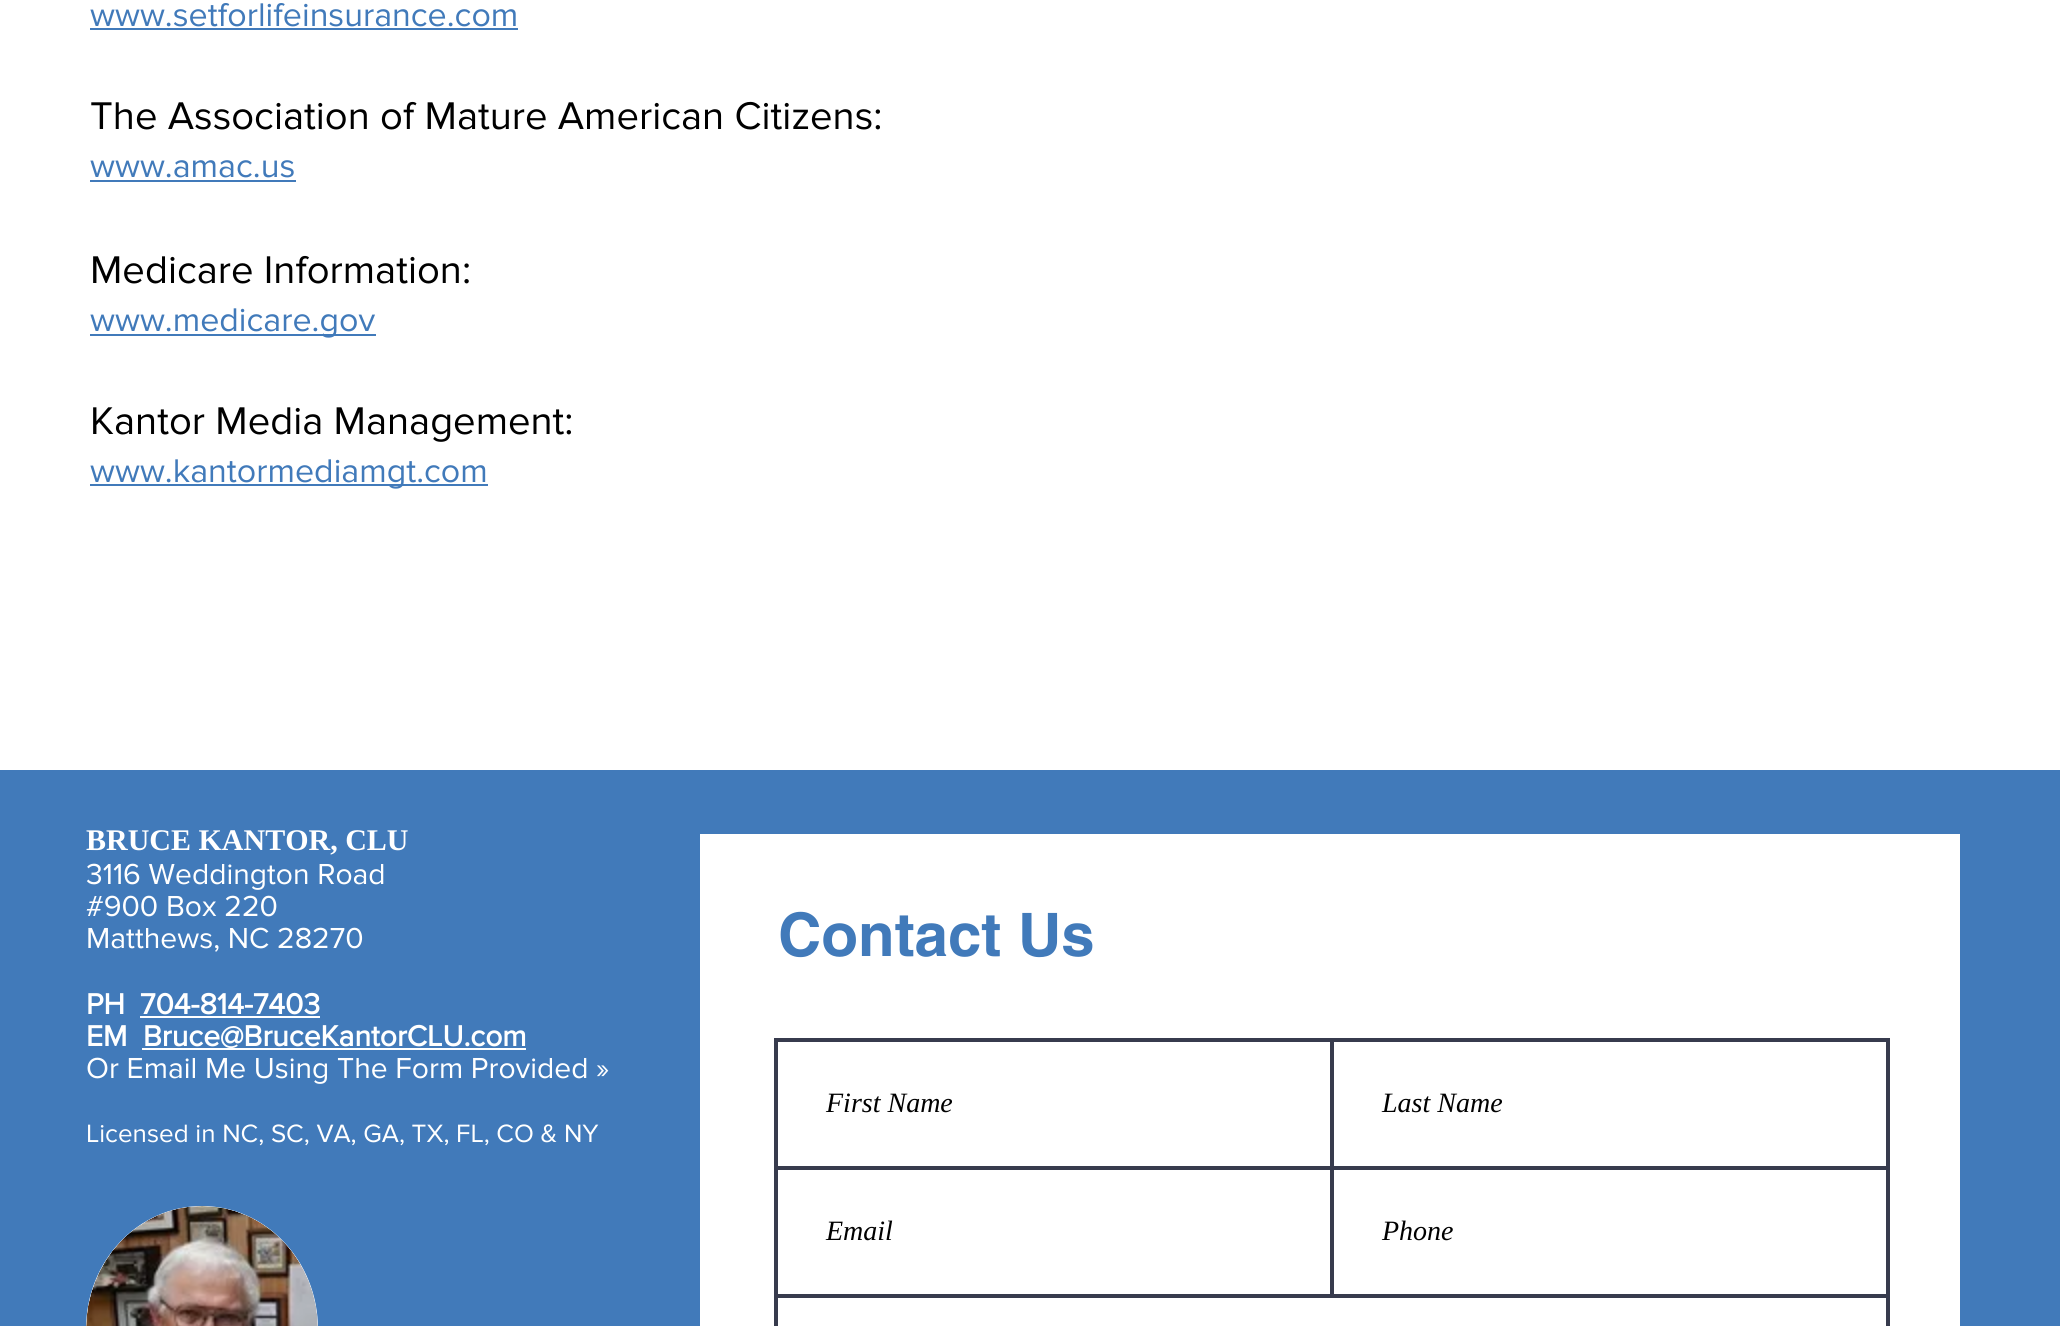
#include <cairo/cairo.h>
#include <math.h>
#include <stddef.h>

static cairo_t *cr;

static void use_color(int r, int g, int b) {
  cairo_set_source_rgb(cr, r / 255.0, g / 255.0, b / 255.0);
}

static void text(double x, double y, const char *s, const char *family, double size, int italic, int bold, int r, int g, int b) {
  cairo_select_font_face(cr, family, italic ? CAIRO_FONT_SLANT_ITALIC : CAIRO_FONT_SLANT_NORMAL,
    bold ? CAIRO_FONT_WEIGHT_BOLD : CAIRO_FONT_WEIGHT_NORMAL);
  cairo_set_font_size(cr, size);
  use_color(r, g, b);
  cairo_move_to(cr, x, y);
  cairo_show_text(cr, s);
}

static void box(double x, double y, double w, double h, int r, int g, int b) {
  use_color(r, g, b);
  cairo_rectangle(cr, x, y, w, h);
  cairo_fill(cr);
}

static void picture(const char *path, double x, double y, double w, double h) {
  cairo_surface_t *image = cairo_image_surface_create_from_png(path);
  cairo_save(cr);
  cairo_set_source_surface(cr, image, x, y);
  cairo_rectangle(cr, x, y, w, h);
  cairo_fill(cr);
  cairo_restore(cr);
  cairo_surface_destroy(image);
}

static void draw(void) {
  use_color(255, 255, 255);
  cairo_paint(cr);
  box(90, 28, 428, 2, 65, 122, 186);
  box(90, 180, 206, 2, 65, 122, 186);
  box(90, 334, 286, 2, 65, 122, 186);
  box(90, 484, 398, 2, 65, 122, 186);
  box(0, 770, 2060, 556, 65, 122, 186);
  box(140, 1016, 180, 2, 255, 255, 255);
  box(142, 1048, 384, 2, 255, 255, 255);
  box(700, 834, 1260, 492, 255, 255, 255);
  cairo_rectangle(cr, 776, 1040, 556, 128);
  use_color(55, 59, 77);
  cairo_set_line_width(cr, 4);
  cairo_stroke(cr);
  cairo_rectangle(cr, 1332, 1040, 556, 128);
  cairo_stroke(cr);
  cairo_rectangle(cr, 776, 1168, 556, 128);
  cairo_stroke(cr);
  cairo_rectangle(cr, 1332, 1168, 556, 128);
  cairo_stroke(cr);
  cairo_rectangle(cr, 776, 1296, 1112, 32);
  cairo_stroke(cr);
  use_color(255, 255, 255);
  cairo_new_path(cr);
  cairo_move_to(cr, 202, 1206);
  cairo_curve_to(cr, 266, 1206, 318, 1261, 318, 1329);
  cairo_curve_to(cr, 318, 1397, 266, 1452, 202, 1452);
  cairo_curve_to(cr, 138, 1452, 86, 1397, 86, 1329);
  cairo_curve_to(cr, 86, 1261, 138, 1206, 202, 1206);
  cairo_close_path(cr);
  cairo_fill(cr);
  picture("img_01.png", 86, 1206, 232, 120);
  text(90, 26, "www.setforlifeinsurance.com", "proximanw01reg", 34, 0, 0, 65, 122, 186);
  text(90, 129, "The Association of Mature American Citizens:", "proximanw01reg", 40, 0, 0, 0, 0, 0);
  text(90, 177, "www.amac.us", "proximanw01reg", 34, 0, 0, 65, 122, 186);
  text(90, 283, "Medicare Information:", "proximanw01reg", 40, 0, 0, 0, 0, 0);
  text(90, 331, "www.medicare.gov", "proximanw01reg", 34, 0, 0, 65, 122, 186);
  text(90, 434, "Kantor Media Management:", "proximanw01reg", 40, 0, 0, 0, 0, 0);
  text(90, 482, "www.kantormediamgt.com", "proximanw01reg", 34, 0, 0, 65, 122, 186);
  text(86, 850, "BRUCE KANTOR, CLU", "Liberation Serif", 30, 0, 1, 255, 255, 255);
  text(86, 884, "3116 Weddington Road", "proximanw01reg", 30, 0, 0, 255, 255, 255);
  text(86, 916, "#900 Box 220", "proximanw01reg", 30, 0, 0, 255, 255, 255);
  text(86, 948, "Matthews, NC 28270", "proximanw01reg", 30, 0, 0, 255, 255, 255);
  text(86, 1014, "PH", "proximanw01reg", 30, 0, 1, 255, 255, 255);
  text(140, 1014, "704-814-7403", "proximanw01reg", 30, 0, 1, 255, 255, 255);
  text(86, 1046, "EM", "proximanw01reg", 30, 0, 1, 255, 255, 255);
  text(143, 1046, "Bruce@BruceKantorCLU.com", "proximanw01reg", 30, 0, 1, 255, 255, 255);
  text(86, 1078, "Or Email Me Using The Form Provided »", "proximanw01reg", 30, 0, 0, 255, 255, 255);
  text(86, 1142, "Licensed in NC, SC, VA, GA, TX, FL, CO & NY", "proximanw01reg", 26, 0, 0, 255, 255, 255);
  text(778, 956, "Contact Us", "helvetica", 60, 0, 1, 65, 122, 186);
  text(826, 1112, "First Name", "Liberation Serif", 28, 1, 0, 0, 0, 0);
  text(1382, 1112, "Last Name", "Liberation Serif", 28, 1, 0, 0, 0, 0);
  text(826, 1240, "Email", "Liberation Serif", 28, 1, 0, 0, 0, 0);
  text(1382, 1240, "Phone", "Liberation Serif", 28, 1, 0, 0, 0, 0);
}

int main(void) {
  cairo_surface_t *surface = cairo_image_surface_create(CAIRO_FORMAT_RGB24, 2060, 1326);
  cr = cairo_create(surface);
  cairo_font_options_t *options = cairo_font_options_create();
  cairo_font_options_set_hint_metrics(options, CAIRO_HINT_METRICS_OFF);
  cairo_font_options_set_hint_style(options, CAIRO_HINT_STYLE_NONE);
  cairo_set_font_options(cr, options);
  cairo_set_miter_limit(cr, 4);
  draw();
  cairo_surface_write_to_png(surface, "out.png");
  cairo_font_options_destroy(options);
  cairo_destroy(cr);
  cairo_surface_destroy(surface);
  return 0;
}
